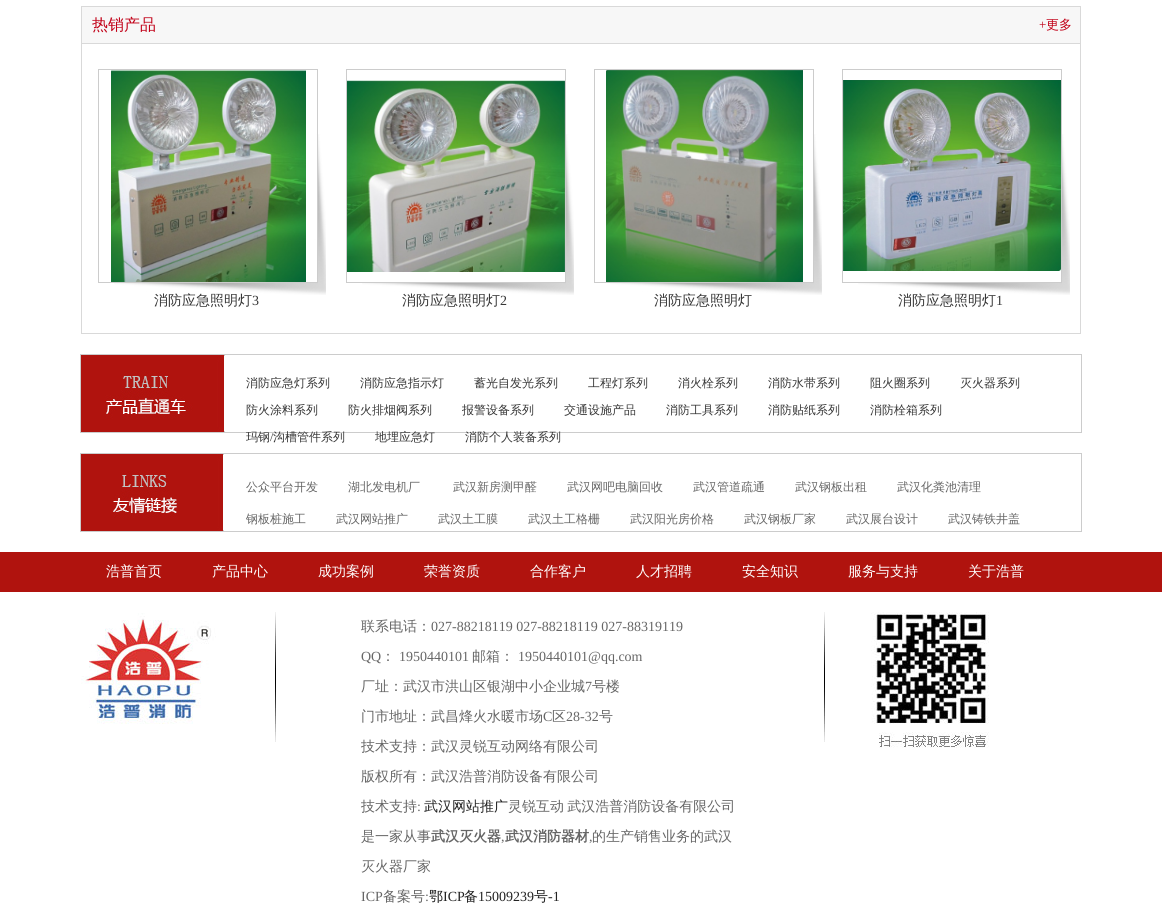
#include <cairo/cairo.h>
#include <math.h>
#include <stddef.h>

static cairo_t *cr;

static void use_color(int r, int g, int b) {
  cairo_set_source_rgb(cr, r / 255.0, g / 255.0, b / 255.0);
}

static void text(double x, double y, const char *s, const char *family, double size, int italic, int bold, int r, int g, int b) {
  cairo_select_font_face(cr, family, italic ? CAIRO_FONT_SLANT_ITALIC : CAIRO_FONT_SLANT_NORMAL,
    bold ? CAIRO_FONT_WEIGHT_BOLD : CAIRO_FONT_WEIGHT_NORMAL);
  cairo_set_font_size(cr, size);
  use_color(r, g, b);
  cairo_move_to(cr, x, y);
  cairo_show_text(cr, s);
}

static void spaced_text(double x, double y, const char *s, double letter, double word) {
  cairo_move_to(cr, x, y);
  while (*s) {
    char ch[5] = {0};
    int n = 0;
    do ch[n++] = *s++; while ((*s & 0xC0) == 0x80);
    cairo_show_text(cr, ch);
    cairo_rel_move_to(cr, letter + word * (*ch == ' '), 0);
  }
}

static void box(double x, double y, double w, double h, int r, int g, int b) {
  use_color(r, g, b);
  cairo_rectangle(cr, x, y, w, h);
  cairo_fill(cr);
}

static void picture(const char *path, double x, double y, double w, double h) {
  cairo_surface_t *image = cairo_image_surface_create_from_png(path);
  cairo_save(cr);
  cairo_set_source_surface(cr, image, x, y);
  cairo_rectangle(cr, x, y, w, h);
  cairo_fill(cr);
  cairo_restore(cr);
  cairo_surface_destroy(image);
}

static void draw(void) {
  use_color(255, 255, 255);
  cairo_paint(cr);
  cairo_rectangle(cr, 81.5, 6.5, 999, 327);
  use_color(217, 217, 217);
  cairo_set_line_width(cr, 1);
  cairo_stroke(cr);
  box(82, 7, 998, 36, 247, 247, 247);
  box(82, 43, 998, 1, 217, 217, 217);
  picture("img_01.png", 114, 134, 212, 161);
  cairo_rectangle(cr, 98.5, 69.5, 219, 213);
  use_color(204, 204, 204);
  cairo_stroke(cr);
  picture("img_02.png", 111, 70, 195, 212);
  picture("img_01.png", 362, 134, 212, 161);
  cairo_rectangle(cr, 346.5, 69.5, 219, 213);
  cairo_stroke(cr);
  picture("img_03.png", 347, 80, 218, 192);
  picture("img_01.png", 610, 134, 212, 161);
  cairo_rectangle(cr, 594.5, 69.5, 219, 213);
  cairo_stroke(cr);
  picture("img_04.png", 606, 70, 197, 212);
  picture("img_01.png", 858, 134, 212, 161);
  cairo_rectangle(cr, 842.5, 69.5, 219, 213);
  cairo_stroke(cr);
  picture("img_05.png", 843, 80, 218, 191);
  picture("img_06.png", 81, 355, 144, 77);
  cairo_rectangle(cr, 80.5, 354.5, 1001, 78);
  cairo_stroke(cr);
  picture("img_07.png", 81, 454, 143, 77);
  cairo_rectangle(cr, 80.5, 453.5, 1001, 78);
  cairo_stroke(cr);
  box(0, 552, 1162, 40, 176, 19, 14);
  picture("img_08.png", 275, 612, 1, 130);
  picture("img_09.png", 81, 613, 135, 111);
  picture("img_08.png", 824, 612, 1, 130);
  picture("img_10.png", 871, 612, 118, 136);
  text(92, 30, "热销产品", "WenQuanYi Zen Hei Medium", 16, 0, 0, 193, 0, 23);
  text(1039, 29, "+", "Liberation Serif", 13, 0, 0, 193, 0, 23);
  text(1046, 29, "更多", "WenQuanYi Zen Hei Medium", 13, 0, 0, 193, 0, 23);
  text(154, 305, "消防应急照明灯", "WenQuanYi Zen Hei Medium", 14, 0, 0, 54, 54, 54);
  text(252, 305, "3", "Liberation Serif", 14, 0, 0, 54, 54, 54);
  text(402, 305, "消防应急照明灯", "WenQuanYi Zen Hei Medium", 14, 0, 0, 54, 54, 54);
  text(500, 305, "2", "Liberation Serif", 14, 0, 0, 54, 54, 54);
  text(654, 305, "消防应急照明灯", "WenQuanYi Zen Hei Medium", 14, 0, 0, 54, 54, 54);
  text(898, 305, "消防应急照明灯", "WenQuanYi Zen Hei Medium", 14, 0, 0, 54, 54, 54);
  text(996, 305, "1", "Liberation Serif", 14, 0, 0, 54, 54, 54);
  text(246, 387, "消防应急灯系列", "WenQuanYi Zen Hei Medium", 12, 0, 0, 54, 54, 54);
  text(360, 387, "消防应急指示灯", "WenQuanYi Zen Hei Medium", 12, 0, 0, 54, 54, 54);
  text(474, 387, "蓄光自发光系列", "WenQuanYi Zen Hei Medium", 12, 0, 0, 54, 54, 54);
  text(588, 387, "工程灯系列", "WenQuanYi Zen Hei Medium", 12, 0, 0, 54, 54, 54);
  text(678, 387, "消火栓系列", "WenQuanYi Zen Hei Medium", 12, 0, 0, 54, 54, 54);
  text(768, 387, "消防水带系列", "WenQuanYi Zen Hei Medium", 12, 0, 0, 54, 54, 54);
  text(870, 387, "阻火圈系列", "WenQuanYi Zen Hei Medium", 12, 0, 0, 54, 54, 54);
  text(960, 387, "灭火器系列", "WenQuanYi Zen Hei Medium", 12, 0, 0, 54, 54, 54);
  text(246, 414, "防火涂料系列", "WenQuanYi Zen Hei Medium", 12, 0, 0, 54, 54, 54);
  text(348, 414, "防火排烟阀系列", "WenQuanYi Zen Hei Medium", 12, 0, 0, 54, 54, 54);
  text(462, 414, "报警设备系列", "WenQuanYi Zen Hei Medium", 12, 0, 0, 54, 54, 54);
  text(564, 414, "交通设施产品", "WenQuanYi Zen Hei Medium", 12, 0, 0, 54, 54, 54);
  text(666, 414, "消防工具系列", "WenQuanYi Zen Hei Medium", 12, 0, 0, 54, 54, 54);
  text(768, 414, "消防贴纸系列", "WenQuanYi Zen Hei Medium", 12, 0, 0, 54, 54, 54);
  text(870, 414, "消防栓箱系列", "WenQuanYi Zen Hei Medium", 12, 0, 0, 54, 54, 54);
  text(246, 441, "玛钢", "WenQuanYi Zen Hei Medium", 12, 0, 0, 54, 54, 54);
  text(270, 441, "/", "Liberation Serif", 12, 0, 0, 54, 54, 54);
  text(273, 441, "沟槽管件系列", "WenQuanYi Zen Hei Medium", 12, 0, 0, 54, 54, 54);
  text(375, 441, "地埋应急灯", "WenQuanYi Zen Hei Medium", 12, 0, 0, 54, 54, 54);
  text(465, 441, "消防个人装备系列", "WenQuanYi Zen Hei Medium", 12, 0, 0, 54, 54, 54);
  text(246, 491, "公众平台开发", "WenQuanYi Zen Hei Medium", 12, 0, 0, 102, 102, 102);
  text(348, 491, "湖北发电机厂", "WenQuanYi Zen Hei Medium", 12, 0, 0, 102, 102, 102);
  text(453, 491, "武汉新房测甲醛", "WenQuanYi Zen Hei Medium", 12, 0, 0, 102, 102, 102);
  text(567, 491, "武汉网吧电脑回收", "WenQuanYi Zen Hei Medium", 12, 0, 0, 102, 102, 102);
  text(693, 491, "武汉管道疏通", "WenQuanYi Zen Hei Medium", 12, 0, 0, 102, 102, 102);
  text(795, 491, "武汉钢板出租", "WenQuanYi Zen Hei Medium", 12, 0, 0, 102, 102, 102);
  text(897, 491, "武汉化粪池清理", "WenQuanYi Zen Hei Medium", 12, 0, 0, 102, 102, 102);
  text(246, 523, "钢板桩施工", "WenQuanYi Zen Hei Medium", 12, 0, 0, 102, 102, 102);
  text(336, 523, "武汉网站推广", "WenQuanYi Zen Hei Medium", 12, 0, 0, 102, 102, 102);
  text(438, 523, "武汉土工膜", "WenQuanYi Zen Hei Medium", 12, 0, 0, 102, 102, 102);
  text(528, 523, "武汉土工格栅", "WenQuanYi Zen Hei Medium", 12, 0, 0, 102, 102, 102);
  text(630, 523, "武汉阳光房价格", "WenQuanYi Zen Hei Medium", 12, 0, 0, 102, 102, 102);
  text(744, 523, "武汉钢板厂家", "WenQuanYi Zen Hei Medium", 12, 0, 0, 102, 102, 102);
  text(846, 523, "武汉展台设计", "WenQuanYi Zen Hei Medium", 12, 0, 0, 102, 102, 102);
  text(948, 523, "武汉铸铁井盖", "WenQuanYi Zen Hei Medium", 12, 0, 0, 102, 102, 102);
  text(106, 576, "浩普首页", "WenQuanYi Zen Hei Medium", 14, 0, 0, 255, 255, 255);
  text(212, 576, "产品中心", "WenQuanYi Zen Hei Medium", 14, 0, 0, 255, 255, 255);
  text(318, 576, "成功案例", "WenQuanYi Zen Hei Medium", 14, 0, 0, 255, 255, 255);
  text(424, 576, "荣誉资质", "WenQuanYi Zen Hei Medium", 14, 0, 0, 255, 255, 255);
  text(530, 576, "合作客户", "WenQuanYi Zen Hei Medium", 14, 0, 0, 255, 255, 255);
  text(636, 576, "人才招聘", "WenQuanYi Zen Hei Medium", 14, 0, 0, 255, 255, 255);
  text(742, 576, "安全知识", "WenQuanYi Zen Hei Medium", 14, 0, 0, 255, 255, 255);
  text(848, 576, "服务与支持", "WenQuanYi Zen Hei Medium", 14, 0, 0, 255, 255, 255);
  text(968, 576, "关于浩普", "WenQuanYi Zen Hei Medium", 14, 0, 0, 255, 255, 255);
  text(361, 631, "联系电话：", "WenQuanYi Zen Hei Medium", 14, 0, 0, 102, 102, 102);
  text(431, 631, "027-88218119 027-88218119 027-88319119", "Liberation Serif", 14, 0, 0, 102, 102, 102);
  text(361, 661, "QQ", "Liberation Serif", 14, 0, 0, 102, 102, 102);
  text(381, 661, "：", "WenQuanYi Zen Hei Medium", 14, 0, 0, 102, 102, 102);
  text(399, 661, "1950440101", "Liberation Serif", 14, 0, 0, 102, 102, 102);
  text(472, 661, "邮箱：", "WenQuanYi Zen Hei Medium", 14, 0, 0, 102, 102, 102);
  text(518, 661, "1950440101@qq.com", "Liberation Serif", 14, 0, 0, 102, 102, 102);
  text(361, 691, "厂址：武汉市洪山区银湖中小企业城", "WenQuanYi Zen Hei Medium", 14, 0, 0, 102, 102, 102);
  text(585, 691, "7", "Liberation Serif", 14, 0, 0, 102, 102, 102);
  text(592, 691, "号楼", "WenQuanYi Zen Hei Medium", 14, 0, 0, 102, 102, 102);
  text(361, 721, "门市地址：武昌烽火水暖市场", "WenQuanYi Zen Hei Medium", 14, 0, 0, 102, 102, 102);
  text(543, 721, "C", "Liberation Serif", 14, 0, 0, 102, 102, 102);
  text(552, 721, "区", "WenQuanYi Zen Hei Medium", 14, 0, 0, 102, 102, 102);
  text(566, 721, "28-32", "Liberation Serif", 14, 0, 0, 102, 102, 102);
  text(599, 721, "号", "WenQuanYi Zen Hei Medium", 14, 0, 0, 102, 102, 102);
  text(361, 751, "技术支持：武汉灵锐互动网络有限公司", "WenQuanYi Zen Hei Medium", 14, 0, 0, 102, 102, 102);
  text(361, 781, "版权所有：武汉浩普消防设备有限公司", "WenQuanYi Zen Hei Medium", 14, 0, 0, 102, 102, 102);
  text(361, 811, "技术支持", "WenQuanYi Zen Hei Medium", 14, 0, 0, 102, 102, 102);
  text(417, 811, ":", "Liberation Serif", 14, 0, 0, 102, 102, 102);
  text(424, 811, "武汉网站推广", "WenQuanYi Zen Hei Medium", 14, 0, 0, 34, 34, 34);
  use_color(102, 102, 102);
  spaced_text(508, 811, "灵锐互动 武汉浩普消防设备有限公司", 0, -1);
  text(361, 841, "是一家从事", "WenQuanYi Zen Hei Medium", 14, 0, 0, 102, 102, 102);
  text(431, 841, "武汉灭火器", "WenQuanYi Zen Hei", 14, 0, 1, 102, 102, 102);
  text(501, 841, ",", "Liberation Serif", 14, 0, 0, 102, 102, 102);
  text(505, 841, "武汉消防器材", "WenQuanYi Zen Hei", 14, 0, 1, 102, 102, 102);
  text(589, 841, ",", "Liberation Serif", 14, 0, 0, 102, 102, 102);
  text(592, 841, "的生产销售业务的武汉", "WenQuanYi Zen Hei Medium", 14, 0, 0, 102, 102, 102);
  text(361, 871, "灭火器厂家", "WenQuanYi Zen Hei Medium", 14, 0, 0, 102, 102, 102);
  text(361, 901, "ICP", "Liberation Serif", 14, 0, 0, 102, 102, 102);
  text(383, 901, "备案号", "WenQuanYi Zen Hei Medium", 14, 0, 0, 102, 102, 102);
  text(425, 901, ":", "Liberation Serif", 14, 0, 0, 102, 102, 102);
  text(429, 901, "鄂", "WenQuanYi Zen Hei Medium", 14, 0, 0, 34, 34, 34);
  text(443, 901, "ICP", "Liberation Serif", 14, 0, 0, 34, 34, 34);
  text(464, 901, "备", "WenQuanYi Zen Hei Medium", 14, 0, 0, 34, 34, 34);
  text(478, 901, "15009239", "Liberation Serif", 14, 0, 0, 34, 34, 34);
  text(534, 901, "号", "WenQuanYi Zen Hei Medium", 14, 0, 0, 34, 34, 34);
  text(548, 901, "-1", "Liberation Serif", 14, 0, 0, 34, 34, 34);
}

int main(void) {
  cairo_surface_t *surface = cairo_image_surface_create(CAIRO_FORMAT_RGB24, 1162, 912);
  cr = cairo_create(surface);
  cairo_font_options_t *options = cairo_font_options_create();
  cairo_font_options_set_hint_metrics(options, CAIRO_HINT_METRICS_OFF);
  cairo_font_options_set_hint_style(options, CAIRO_HINT_STYLE_NONE);
  cairo_set_font_options(cr, options);
  cairo_set_miter_limit(cr, 4);
  draw();
  cairo_surface_write_to_png(surface, "out.png");
  cairo_font_options_destroy(options);
  cairo_destroy(cr);
  cairo_surface_destroy(surface);
  return 0;
}
